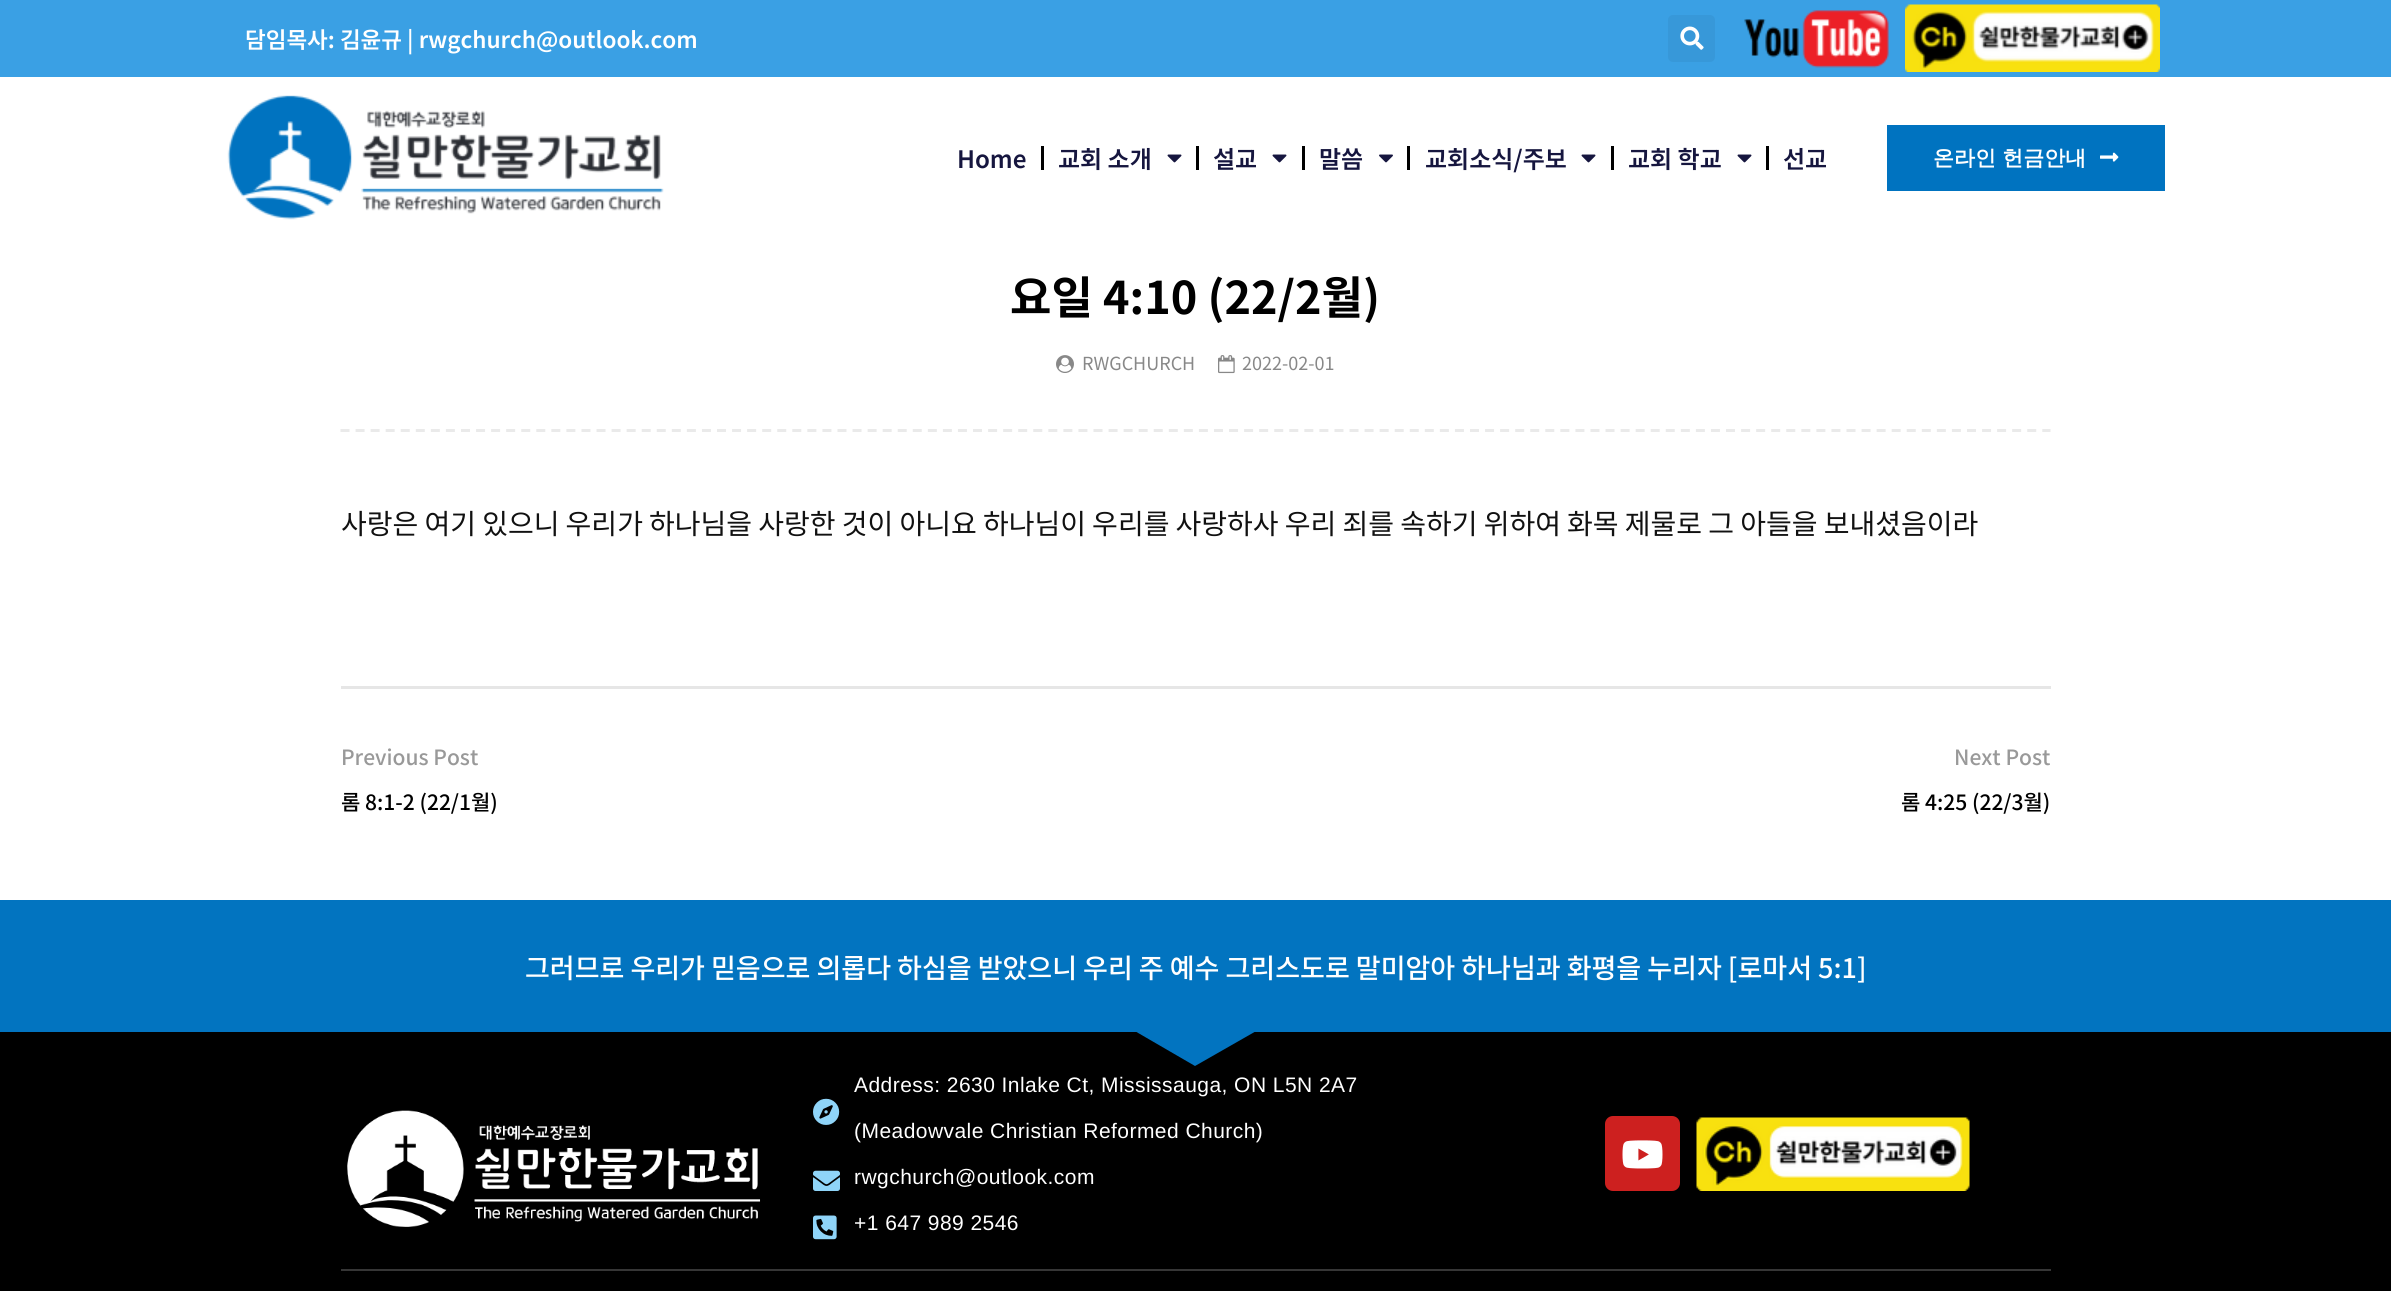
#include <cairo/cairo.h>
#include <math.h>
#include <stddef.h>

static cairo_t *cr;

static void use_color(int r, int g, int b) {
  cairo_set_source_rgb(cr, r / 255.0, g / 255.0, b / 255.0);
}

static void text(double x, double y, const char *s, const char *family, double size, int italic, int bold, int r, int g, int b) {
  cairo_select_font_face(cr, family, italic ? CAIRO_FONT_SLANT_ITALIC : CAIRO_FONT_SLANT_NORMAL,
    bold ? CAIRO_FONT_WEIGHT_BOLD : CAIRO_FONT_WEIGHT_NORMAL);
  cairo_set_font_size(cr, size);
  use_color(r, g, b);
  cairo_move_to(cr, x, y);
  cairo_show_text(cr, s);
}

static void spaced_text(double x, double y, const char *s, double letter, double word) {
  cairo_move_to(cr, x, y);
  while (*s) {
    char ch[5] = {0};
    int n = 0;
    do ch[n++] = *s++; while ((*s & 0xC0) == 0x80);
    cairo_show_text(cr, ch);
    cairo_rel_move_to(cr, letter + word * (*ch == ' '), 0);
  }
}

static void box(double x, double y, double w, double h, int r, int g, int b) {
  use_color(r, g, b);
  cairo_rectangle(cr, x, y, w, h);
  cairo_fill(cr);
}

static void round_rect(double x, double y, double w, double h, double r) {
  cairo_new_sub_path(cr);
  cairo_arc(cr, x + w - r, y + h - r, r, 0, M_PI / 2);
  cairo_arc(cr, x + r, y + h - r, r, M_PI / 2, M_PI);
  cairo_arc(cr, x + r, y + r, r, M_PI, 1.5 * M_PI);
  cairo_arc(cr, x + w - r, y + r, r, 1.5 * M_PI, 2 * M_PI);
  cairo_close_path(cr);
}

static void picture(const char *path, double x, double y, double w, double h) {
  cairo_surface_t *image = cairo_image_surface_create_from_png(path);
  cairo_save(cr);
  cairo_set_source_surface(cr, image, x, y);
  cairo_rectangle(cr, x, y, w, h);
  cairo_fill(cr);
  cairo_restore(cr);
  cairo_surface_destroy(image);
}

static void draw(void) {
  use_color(255, 255, 255);
  cairo_paint(cr);
  box(0, 0, 2391, 77, 58, 160, 228);
  use_color(55, 152, 217);
  round_rect(1668, 15, 47, 47, 5);
  cairo_fill(cr);
  picture("img_01.png", 1680, 26, 24, 24);
  picture("img_02.png", 1744, 10, 145, 58);
  picture("img_03.png", 1905, 4, 255, 68);
  picture("img_04.png", 227, 95, 437, 125);
  box(1041, 146, 3, 24, 0, 0, 0);
  picture("img_05.png", 1167, 154, 15, 9);
  box(1196, 146, 3, 24, 0, 0, 0);
  picture("img_05.png", 1272, 154, 15, 9);
  box(1302, 146, 3, 24, 0, 0, 0);
  picture("img_06.png", 1379, 154, 14, 9);
  box(1407, 146, 3, 24, 0, 0, 0);
  picture("img_05.png", 1581, 154, 15, 9);
  box(1611, 146, 3, 24, 0, 0, 0);
  picture("img_05.png", 1737, 154, 15, 9);
  box(1766, 146, 3, 24, 0, 0, 0);
  box(1887, 125, 278, 66, 0, 115, 192);
  picture("img_07.png", 2100, 152, 19, 10);
  picture("img_08.png", 1056, 355, 18, 18);
  picture("img_09.png", 1218, 355, 17, 19);
  cairo_new_path(cr);
  cairo_move_to(cr, 340.5, 430.5);
  cairo_line_to(cr, 2050.5, 430.5);
  use_color(234, 234, 234);
  cairo_set_line_width(cr, 3);
  cairo_set_dash(cr, (double[]){9, 6.06}, 2, 0);
  cairo_stroke(cr);
  box(341, 686, 1710, 3, 230, 230, 230);
  box(0, 900, 2391, 132, 2, 116, 192);
  box(0, 1032, 2391, 259, 0, 0, 0);
  cairo_save(cr);
  cairo_rectangle(cr, 341, 1031, 1710, 36);
  cairo_clip(cr);
  use_color(2, 116, 192);
  cairo_new_path(cr);
  cairo_move_to(cr, 1195, 1066);
  cairo_line_to(cr, 1133, 1030);
  cairo_line_to(cr, 1258, 1030);
  cairo_close_path(cr);
  cairo_fill(cr);
  cairo_restore(cr);
  picture("img_10.png", 347, 1110, 414, 117);
  picture("img_11.png", 813, 1098, 27, 27);
  picture("img_12.png", 813, 1170, 27, 21);
  picture("img_13.png", 813, 1215, 24, 25);
  use_color(205, 32, 31);
  round_rect(1605, 1116, 75, 75, 8);
  cairo_fill(cr);
  picture("img_14.png", 1622, 1140, 41, 29);
  picture("img_15.png", 1696, 1117, 274, 74);
  box(341, 1269, 1710, 2, 54, 54, 54);
  text(245, 48, "담임목사: 김윤규 | rwgchurch@outlook.com", "Noto Sans KR SemiBold", 22.5, 0, 0, 255, 255, 255);
  text(957, 168, "Home", "Noto Sans KR SemiBold", 24, 0, 0, 22, 22, 63);
  text(1058, 168, "교회 소개", "Noto Sans KR SemiBold", 24, 0, 0, 22, 22, 63);
  text(1213, 168, "설교", "Noto Sans KR SemiBold", 24, 0, 0, 22, 22, 63);
  text(1319, 168, "말씀", "Noto Sans KR SemiBold", 24, 0, 0, 22, 22, 63);
  text(1425, 168, "교회소식/주보", "Noto Sans KR SemiBold", 24, 0, 0, 22, 22, 63);
  text(1628, 168, "교회 학교", "Noto Sans KR SemiBold", 24, 0, 0, 22, 22, 63);
  text(1783, 168, "선교", "Noto Sans KR SemiBold", 24, 0, 0, 22, 22, 63);
  text(1933, 165, "온라인 헌금안내", "WenQuanYi Zen Hei", 21, 0, 1, 255, 255, 255);
  text(1010, 314, "요일 4:10 (22/2월)", "Noto Sans KR", 45, 0, 1, 0, 0, 0);
  text(1082, 370, "RWGCHURCH", "Noto Sans KR", 18, 0, 0, 136, 136, 136);
  text(1242, 370, "2022-02-01", "Noto Sans KR", 18, 0, 0, 136, 136, 136);
  cairo_set_font_size(cr, 28);
  use_color(17, 17, 17);
  spaced_text(341, 534, "사랑은 여기 있으니 우리가 하나님을 사랑한 것이 아니요 하나님이 우리를 사랑하사 우리 죄를 속하기 위하여 화목 제물로 그 아들을 보내셨음이라", 0, -0.1);
  text(341, 765, "Previous Post", "Noto Sans KR Medium", 21, 0, 0, 153, 153, 153);
  text(341, 810, "롬 8:1-2 (22/1월)", "Noto Sans KR Medium", 21, 0, 0, 0, 0, 0);
  text(1954, 765, "Next Post", "Noto Sans KR Medium", 21, 0, 0, 153, 153, 153);
  text(1901, 810, "롬 4:25 (22/3월)", "Noto Sans KR Medium", 21, 0, 0, 0, 0, 0);
  text(525, 978, "그러므로 우리가 믿음으로 의롭다 하심을 받았으니 우리 주 예수 그리스도로 말미암아 하나님과 화평을 누리자 [로마서 5:1]", "Noto Sans KR Medium", 27, 0, 0, 255, 255, 255);
  cairo_select_font_face(cr, "Liberation Sans", CAIRO_FONT_SLANT_NORMAL, CAIRO_FONT_WEIGHT_NORMAL);
  cairo_set_font_size(cr, 21);
  spaced_text(854, 1092, "Address: 2630 Inlake Ct, Mississauga, ON L5N 2A7", 0.45, 0);
  spaced_text(854, 1138, "(Meadowvale Christian Reformed Church)", 0.45, 0);
  spaced_text(854, 1184, "rwgchurch@outlook.com", 0.45, 0);
  spaced_text(854, 1230, "+1 647 989 2546", 0.45, 0);
}

int main(void) {
  cairo_surface_t *surface = cairo_image_surface_create(CAIRO_FORMAT_RGB24, 2391, 1291);
  cr = cairo_create(surface);
  cairo_font_options_t *options = cairo_font_options_create();
  cairo_font_options_set_hint_metrics(options, CAIRO_HINT_METRICS_OFF);
  cairo_font_options_set_hint_style(options, CAIRO_HINT_STYLE_NONE);
  cairo_set_font_options(cr, options);
  cairo_set_miter_limit(cr, 4);
  draw();
  cairo_surface_write_to_png(surface, "out.png");
  cairo_font_options_destroy(options);
  cairo_destroy(cr);
  cairo_surface_destroy(surface);
  return 0;
}
